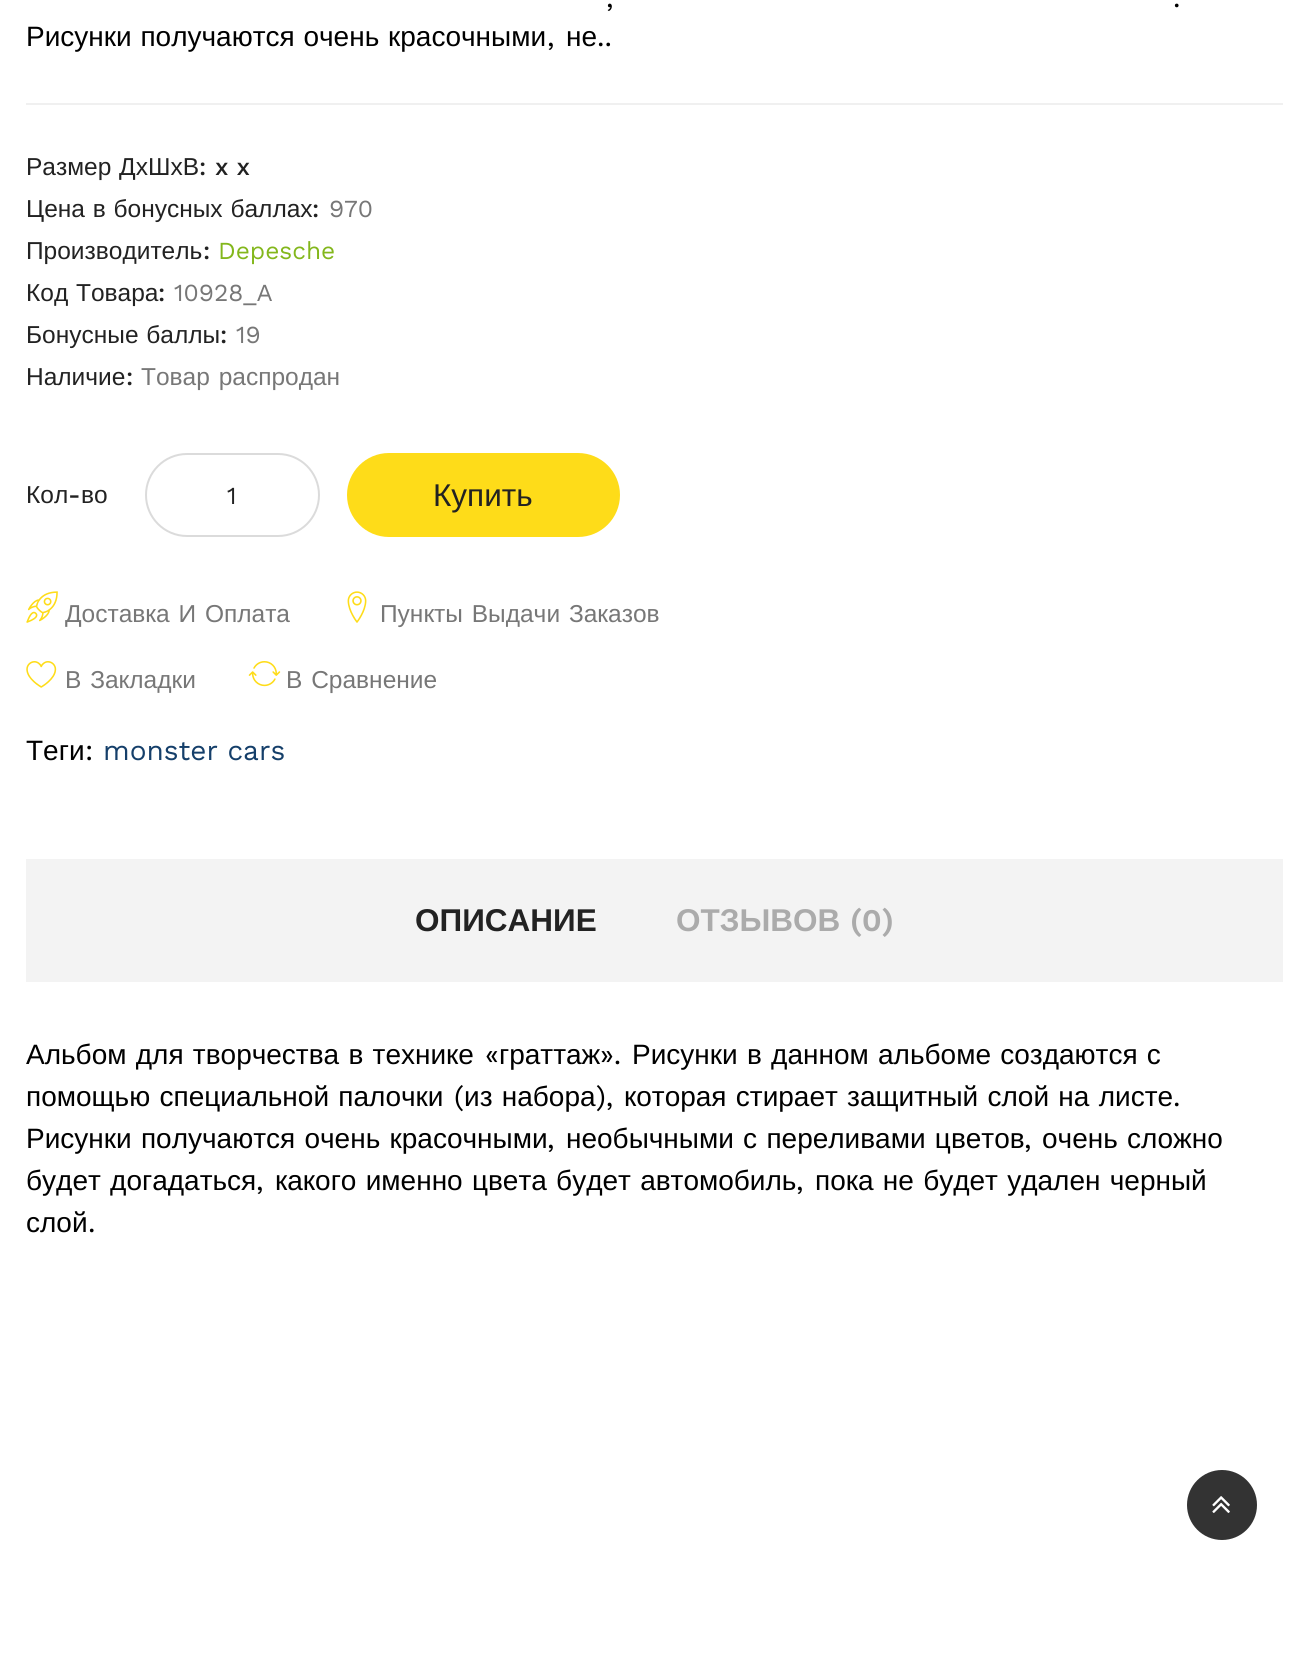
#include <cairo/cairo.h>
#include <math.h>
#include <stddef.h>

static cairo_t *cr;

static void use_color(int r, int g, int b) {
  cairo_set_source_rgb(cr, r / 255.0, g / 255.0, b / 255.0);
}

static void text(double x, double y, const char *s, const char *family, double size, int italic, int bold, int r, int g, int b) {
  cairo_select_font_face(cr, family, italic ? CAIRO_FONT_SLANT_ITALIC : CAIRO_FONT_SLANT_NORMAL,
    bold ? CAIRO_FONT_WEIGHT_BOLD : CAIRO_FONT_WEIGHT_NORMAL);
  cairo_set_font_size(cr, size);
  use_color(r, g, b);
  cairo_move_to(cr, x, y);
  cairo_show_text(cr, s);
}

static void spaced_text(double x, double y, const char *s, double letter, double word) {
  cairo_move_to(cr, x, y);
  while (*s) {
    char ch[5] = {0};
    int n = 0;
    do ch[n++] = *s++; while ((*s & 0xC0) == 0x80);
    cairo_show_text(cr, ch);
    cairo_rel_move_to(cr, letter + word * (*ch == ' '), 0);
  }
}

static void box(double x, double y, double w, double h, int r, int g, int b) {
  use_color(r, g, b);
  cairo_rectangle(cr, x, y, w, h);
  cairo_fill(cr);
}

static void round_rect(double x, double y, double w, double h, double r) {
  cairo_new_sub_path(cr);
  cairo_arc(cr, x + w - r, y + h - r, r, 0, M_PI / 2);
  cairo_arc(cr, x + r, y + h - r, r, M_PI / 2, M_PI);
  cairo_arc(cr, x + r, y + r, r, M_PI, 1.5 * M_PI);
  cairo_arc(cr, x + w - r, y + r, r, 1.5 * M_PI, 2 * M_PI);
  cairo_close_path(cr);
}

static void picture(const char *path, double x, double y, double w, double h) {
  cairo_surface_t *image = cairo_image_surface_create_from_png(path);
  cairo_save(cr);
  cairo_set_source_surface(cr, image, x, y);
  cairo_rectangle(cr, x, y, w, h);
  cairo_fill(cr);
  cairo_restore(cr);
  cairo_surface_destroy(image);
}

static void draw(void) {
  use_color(255, 255, 255);
  cairo_paint(cr);
  box(26, 103, 1257, 2, 240, 240, 240);
  round_rect(146, 454, 173, 82, 41);
  use_color(219, 219, 219);
  cairo_stroke(cr);
  use_color(254, 220, 25);
  round_rect(347, 453, 273, 84, 42);
  cairo_fill(cr);
  picture("img_01.png", 26, 591, 32, 32);
  picture("img_02.png", 347, 591, 20, 32);
  picture("img_03.png", 26, 661, 31, 27);
  picture("img_04.png", 248, 661, 33, 26);
  box(26, 859, 1257, 123, 243, 243, 243);
  use_color(51, 51, 51);
  cairo_arc(cr, 1222, 1505, 35, 0, 2 * M_PI);
  cairo_fill(cr);
  picture("img_05.png", 1212, 1496, 18, 17);
  text(606, 7, ",", "Work Sans", 28, 0, 0, 0, 0, 0);
  text(1173, 7, ".", "Work Sans", 28, 0, 0, 0, 0, 0);
  cairo_select_font_face(cr, "Liberation Sans", CAIRO_FONT_SLANT_NORMAL, CAIRO_FONT_WEIGHT_NORMAL);
  spaced_text(26, 46, "Рисунки получаются очень красочными", 0, 1);
  text(547, 46, ",", "Work Sans", 28, 0, 0, 0, 0, 0);
  text(566, 46, "не", "Liberation Sans", 28, 0, 0, 0, 0, 0);
  text(597, 46, "..", "Work Sans", 28, 0, 0, 0, 0, 0);
  cairo_select_font_face(cr, "Liberation Sans", CAIRO_FONT_SLANT_NORMAL, CAIRO_FONT_WEIGHT_NORMAL);
  cairo_set_font_size(cr, 24.5);
  use_color(34, 34, 34);
  spaced_text(26, 175, "Размер ДхШхВ", 0, 1);
  text(199, 175, ":", "Work Sans Medium", 24.5, 0, 0, 34, 34, 34);
  text(215, 175, "x x", "Work Sans Medium", 24.5, 0, 0, 34, 34, 34);
  cairo_select_font_face(cr, "Liberation Sans", CAIRO_FONT_SLANT_NORMAL, CAIRO_FONT_WEIGHT_NORMAL);
  spaced_text(26, 217, "Цена в бонусных баллах", 0, 1);
  text(312, 217, ":", "Work Sans Medium", 24.5, 0, 0, 34, 34, 34);
  text(329, 217, "970", "Work Sans", 24.5, 0, 0, 119, 119, 119);
  text(26, 259, "Производитель", "Liberation Sans", 24.5, 0, 0, 34, 34, 34);
  text(203, 259, ":", "Work Sans Medium", 24.5, 0, 0, 34, 34, 34);
  text(218, 259, "Depesche", "Work Sans", 24.5, 0, 0, 131, 183, 28);
  cairo_select_font_face(cr, "Liberation Sans", CAIRO_FONT_SLANT_NORMAL, CAIRO_FONT_WEIGHT_NORMAL);
  use_color(34, 34, 34);
  spaced_text(26, 301, "Код Товара", 0, 1);
  text(158, 301, ":", "Work Sans Medium", 24.5, 0, 0, 34, 34, 34);
  text(174, 301, "10928_A", "Work Sans", 24.5, 0, 0, 119, 119, 119);
  cairo_select_font_face(cr, "Liberation Sans", CAIRO_FONT_SLANT_NORMAL, CAIRO_FONT_WEIGHT_NORMAL);
  use_color(34, 34, 34);
  spaced_text(26, 343, "Бонусные баллы", 0, 1);
  text(220, 343, ":", "Work Sans Medium", 24.5, 0, 0, 34, 34, 34);
  text(236, 343, "19", "Work Sans", 24.5, 0, 0, 119, 119, 119);
  text(26, 385, "Наличие", "Liberation Sans", 24.5, 0, 0, 34, 34, 34);
  text(126, 385, ":", "Work Sans Medium", 24.5, 0, 0, 34, 34, 34);
  cairo_select_font_face(cr, "Liberation Sans", CAIRO_FONT_SLANT_NORMAL, CAIRO_FONT_WEIGHT_NORMAL);
  use_color(119, 119, 119);
  spaced_text(141, 385, "Товар распродан", 0, 2);
  text(26, 503, "Кол", "Liberation Sans", 24.5, 0, 0, 34, 34, 34);
  text(68, 503, "-", "Work Sans Medium", 24.5, 0, 0, 34, 34, 34);
  text(81, 503, "во", "Liberation Sans", 24.5, 0, 0, 34, 34, 34);
  text(227, 504, "1", "Work Sans", 24.5, 0, 0, 34, 34, 34);
  text(433, 506, "Купить", "Liberation Sans", 31.5, 0, 0, 34, 34, 34);
  cairo_set_font_size(cr, 24.5);
  use_color(119, 119, 119);
  spaced_text(65, 622, "Доставка И Оплата", 0, 2);
  spaced_text(380, 622, "Пункты Выдачи Заказов", 0, 2);
  spaced_text(65, 688, "В Закладки", 0, 2);
  spaced_text(286, 688, "В Сравнение", 0, 2);
  text(26, 760, "Теги", "Liberation Sans", 28, 0, 0, 0, 0, 0);
  text(85, 760, ":", "Work Sans", 28, 0, 0, 0, 0, 0);
  text(103, 760, "monster cars", "Work Sans", 28, 0, 0, 21, 63, 106);
  text(415, 931, "ОПИСАНИЕ", "Liberation Sans", 31.5, 0, 1, 34, 34, 34);
  text(676, 931, "ОТЗЫВОВ", "Liberation Sans", 31.5, 0, 1, 171, 171, 171);
  text(850, 931, "(0)", "Work Sans SemiBold", 31.5, 0, 0, 171, 171, 171);
  cairo_select_font_face(cr, "Liberation Sans", CAIRO_FONT_SLANT_NORMAL, CAIRO_FONT_WEIGHT_NORMAL);
  cairo_set_font_size(cr, 28);
  use_color(0, 0, 0);
  spaced_text(26, 1064, "Альбом для творчества в технике", 0, 1.5);
  text(485, 1064, "«", "Work Sans", 28, 0, 0, 0, 0, 0);
  text(499, 1064, "граттаж", "Liberation Sans", 28, 0, 0, 0, 0, 0);
  text(600, 1064, "».", "Work Sans", 28, 0, 0, 0, 0, 0);
  cairo_select_font_face(cr, "Liberation Sans", CAIRO_FONT_SLANT_NORMAL, CAIRO_FONT_WEIGHT_NORMAL);
  spaced_text(632, 1064, "Рисунки в данном альбоме создаются с", 0, 1.5);
  spaced_text(26, 1106, "помощью специальной палочки", 0, 1.5);
  text(454, 1106, "(", "Work Sans", 28, 0, 0, 0, 0, 0);
  cairo_select_font_face(cr, "Liberation Sans", CAIRO_FONT_SLANT_NORMAL, CAIRO_FONT_WEIGHT_NORMAL);
  spaced_text(464, 1106, "из набора", 0, 1.5);
  text(596, 1106, "),", "Work Sans", 28, 0, 0, 0, 0, 0);
  cairo_select_font_face(cr, "Liberation Sans", CAIRO_FONT_SLANT_NORMAL, CAIRO_FONT_WEIGHT_NORMAL);
  spaced_text(624, 1106, "которая стирает защитный слой на листе", 0, 1.5);
  text(1173, 1106, ".", "Work Sans", 28, 0, 0, 0, 0, 0);
  cairo_select_font_face(cr, "Liberation Sans", CAIRO_FONT_SLANT_NORMAL, CAIRO_FONT_WEIGHT_NORMAL);
  spaced_text(26, 1148, "Рисунки получаются очень красочными", 0, 1.5);
  text(547, 1148, ",", "Work Sans", 28, 0, 0, 0, 0, 0);
  cairo_select_font_face(cr, "Liberation Sans", CAIRO_FONT_SLANT_NORMAL, CAIRO_FONT_WEIGHT_NORMAL);
  spaced_text(566, 1148, "необычными с переливами цветов", 0, 1.5);
  text(1024, 1148, ",", "Work Sans", 28, 0, 0, 0, 0, 0);
  cairo_select_font_face(cr, "Liberation Sans", CAIRO_FONT_SLANT_NORMAL, CAIRO_FONT_WEIGHT_NORMAL);
  spaced_text(1042, 1148, "очень сложно", 0, 1.5);
  spaced_text(26, 1190, "будет догадаться", 0, 1.5);
  text(256, 1190, ",", "Work Sans", 28, 0, 0, 0, 0, 0);
  cairo_select_font_face(cr, "Liberation Sans", CAIRO_FONT_SLANT_NORMAL, CAIRO_FONT_WEIGHT_NORMAL);
  spaced_text(275, 1190, "какого именно цвета будет автомобиль", 0, 1.5);
  text(796, 1190, ",", "Work Sans", 28, 0, 0, 0, 0, 0);
  cairo_select_font_face(cr, "Liberation Sans", CAIRO_FONT_SLANT_NORMAL, CAIRO_FONT_WEIGHT_NORMAL);
  spaced_text(815, 1190, "пока не будет удален черный", 0, 1.5);
  text(26, 1232, "слой", "Liberation Sans", 28, 0, 0, 0, 0, 0);
  text(88, 1232, ".", "Work Sans", 28, 0, 0, 0, 0, 0);
}

int main(void) {
  cairo_surface_t *surface = cairo_image_surface_create(CAIRO_FORMAT_RGB24, 1309, 1679);
  cr = cairo_create(surface);
  cairo_font_options_t *options = cairo_font_options_create();
  cairo_font_options_set_hint_metrics(options, CAIRO_HINT_METRICS_OFF);
  cairo_font_options_set_hint_style(options, CAIRO_HINT_STYLE_NONE);
  cairo_set_font_options(cr, options);
  cairo_set_miter_limit(cr, 4);
  draw();
  cairo_surface_write_to_png(surface, "out.png");
  cairo_font_options_destroy(options);
  cairo_destroy(cr);
  cairo_surface_destroy(surface);
  return 0;
}
